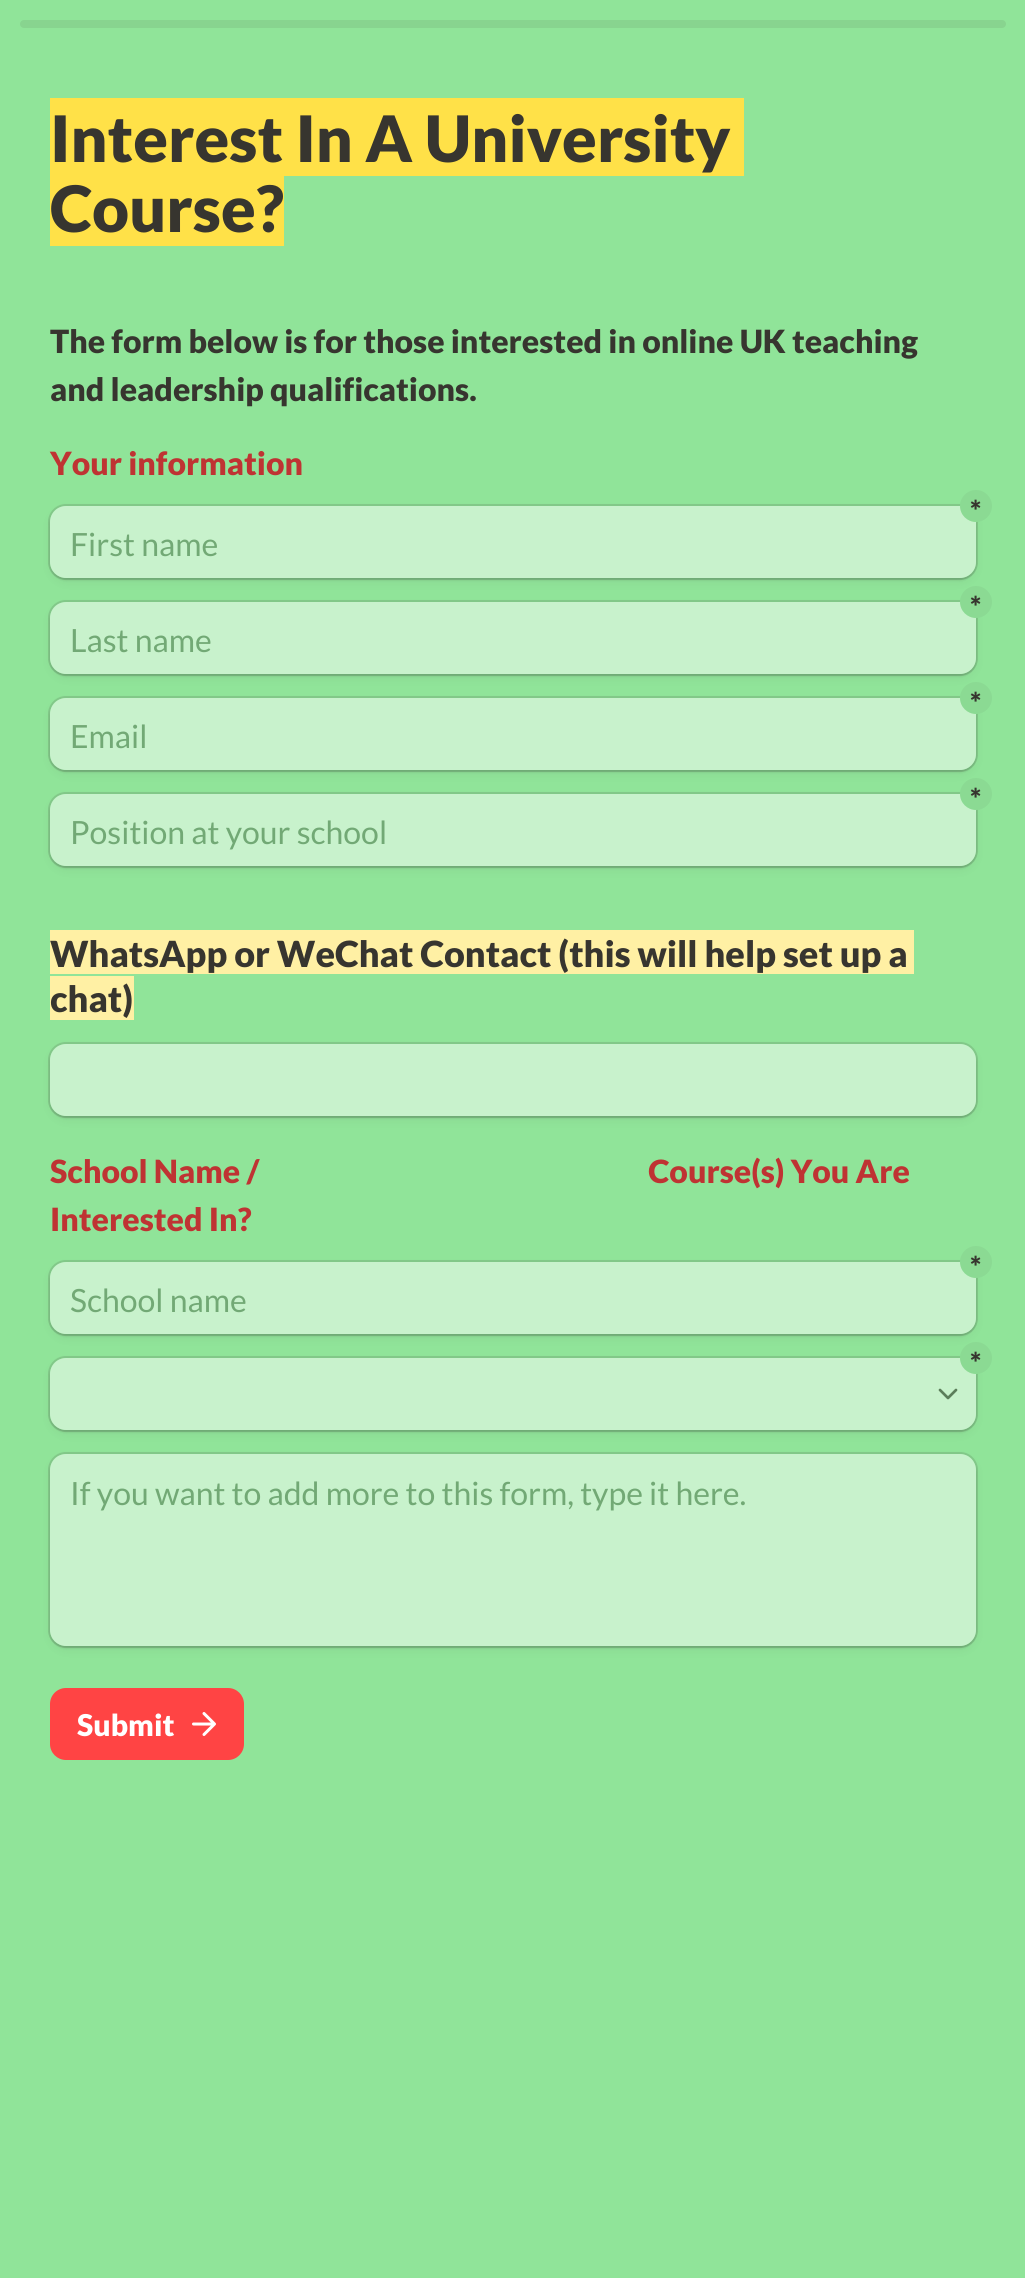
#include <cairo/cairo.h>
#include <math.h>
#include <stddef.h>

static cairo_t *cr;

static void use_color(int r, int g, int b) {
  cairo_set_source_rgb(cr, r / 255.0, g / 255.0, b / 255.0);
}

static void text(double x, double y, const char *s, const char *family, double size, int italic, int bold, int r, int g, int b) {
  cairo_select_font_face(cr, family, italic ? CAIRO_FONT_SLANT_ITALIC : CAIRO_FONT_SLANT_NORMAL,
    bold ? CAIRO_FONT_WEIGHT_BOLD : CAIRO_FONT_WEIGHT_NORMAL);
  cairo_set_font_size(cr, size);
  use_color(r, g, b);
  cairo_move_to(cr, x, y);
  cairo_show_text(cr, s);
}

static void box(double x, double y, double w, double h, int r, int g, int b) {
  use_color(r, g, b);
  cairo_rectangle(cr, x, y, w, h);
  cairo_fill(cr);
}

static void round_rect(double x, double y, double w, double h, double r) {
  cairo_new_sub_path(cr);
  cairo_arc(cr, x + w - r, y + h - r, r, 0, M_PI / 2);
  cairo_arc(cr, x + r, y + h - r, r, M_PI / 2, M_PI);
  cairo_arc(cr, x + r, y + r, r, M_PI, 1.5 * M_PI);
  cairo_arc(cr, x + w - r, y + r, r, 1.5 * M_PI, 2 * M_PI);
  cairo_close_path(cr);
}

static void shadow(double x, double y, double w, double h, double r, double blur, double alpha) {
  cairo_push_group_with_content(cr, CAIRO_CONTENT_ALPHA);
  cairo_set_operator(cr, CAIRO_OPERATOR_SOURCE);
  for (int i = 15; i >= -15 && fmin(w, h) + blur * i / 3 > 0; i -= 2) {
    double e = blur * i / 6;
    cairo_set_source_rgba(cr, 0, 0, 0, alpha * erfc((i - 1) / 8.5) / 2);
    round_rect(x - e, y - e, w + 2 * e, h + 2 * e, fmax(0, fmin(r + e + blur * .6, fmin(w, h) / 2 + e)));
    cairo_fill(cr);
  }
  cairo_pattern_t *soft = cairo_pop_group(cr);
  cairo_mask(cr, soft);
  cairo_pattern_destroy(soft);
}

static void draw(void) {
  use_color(144, 228, 153);
  cairo_paint(cr);
  use_color(136, 212, 143);
  round_rect(20, 20, 986, 8, 4);
  cairo_fill(cr);
  box(50, 98, 694, 78, 255, 225, 72);
  box(50, 176, 234, 70, 255, 225, 72);
  cairo_save(cr);
  cairo_set_fill_rule(cr, CAIRO_FILL_RULE_EVEN_ODD);
  cairo_new_path(cr);
  cairo_move_to(cr, 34, 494);
  cairo_line_to(cr, 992, 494);
  cairo_line_to(cr, 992, 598);
  cairo_line_to(cr, 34, 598);
  cairo_close_path(cr);
  cairo_move_to(cr, 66, 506);
  cairo_line_to(cr, 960, 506);
  cairo_curve_to(cr, 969, 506, 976, 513, 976, 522);
  cairo_line_to(cr, 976, 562);
  cairo_curve_to(cr, 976, 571, 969, 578, 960, 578);
  cairo_line_to(cr, 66, 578);
  cairo_curve_to(cr, 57, 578, 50, 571, 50, 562);
  cairo_line_to(cr, 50, 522);
  cairo_curve_to(cr, 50, 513, 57, 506, 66, 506);
  cairo_close_path(cr);
  cairo_clip(cr);
  use_color(58, 58, 50);
  shadow(50, 510, 926, 72, 16, 5, 0.08);
  cairo_restore(cr);
  round_rect(49, 505, 928, 74, 17);
  cairo_set_source_rgba(cr, 0.227, 0.227, 0.196, 0.16);
  cairo_stroke(cr);
  cairo_save(cr);
  cairo_set_fill_rule(cr, CAIRO_FILL_RULE_EVEN_ODD);
  cairo_new_path(cr);
  cairo_move_to(cr, 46, 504);
  cairo_line_to(cr, 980, 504);
  cairo_line_to(cr, 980, 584);
  cairo_line_to(cr, 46, 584);
  cairo_close_path(cr);
  cairo_move_to(cr, 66, 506);
  cairo_line_to(cr, 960, 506);
  cairo_curve_to(cr, 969, 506, 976, 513, 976, 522);
  cairo_line_to(cr, 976, 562);
  cairo_curve_to(cr, 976, 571, 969, 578, 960, 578);
  cairo_line_to(cr, 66, 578);
  cairo_curve_to(cr, 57, 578, 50, 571, 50, 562);
  cairo_line_to(cr, 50, 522);
  cairo_curve_to(cr, 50, 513, 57, 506, 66, 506);
  cairo_close_path(cr);
  cairo_clip(cr);
  use_color(0, 0, 0);
  shadow(50, 508, 926, 72, 16, 1, 0.12);
  cairo_restore(cr);
  cairo_set_source_rgba(cr, 1, 1, 1, 0.5);
  round_rect(50, 506, 926, 72, 16);
  cairo_fill(cr);
  use_color(139, 218, 147);
  cairo_arc(cr, 976, 506, 16, 0, 2 * M_PI);
  cairo_fill(cr);
  cairo_save(cr);
  cairo_set_fill_rule(cr, CAIRO_FILL_RULE_EVEN_ODD);
  cairo_new_path(cr);
  cairo_move_to(cr, 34, 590);
  cairo_line_to(cr, 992, 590);
  cairo_line_to(cr, 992, 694);
  cairo_line_to(cr, 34, 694);
  cairo_close_path(cr);
  cairo_move_to(cr, 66, 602);
  cairo_line_to(cr, 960, 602);
  cairo_curve_to(cr, 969, 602, 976, 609, 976, 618);
  cairo_line_to(cr, 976, 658);
  cairo_curve_to(cr, 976, 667, 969, 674, 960, 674);
  cairo_line_to(cr, 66, 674);
  cairo_curve_to(cr, 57, 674, 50, 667, 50, 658);
  cairo_line_to(cr, 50, 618);
  cairo_curve_to(cr, 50, 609, 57, 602, 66, 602);
  cairo_close_path(cr);
  cairo_clip(cr);
  use_color(58, 58, 50);
  shadow(50, 606, 926, 72, 16, 5, 0.08);
  cairo_restore(cr);
  round_rect(49, 601, 928, 74, 17);
  cairo_set_source_rgba(cr, 0.227, 0.227, 0.196, 0.16);
  cairo_stroke(cr);
  cairo_save(cr);
  cairo_set_fill_rule(cr, CAIRO_FILL_RULE_EVEN_ODD);
  cairo_new_path(cr);
  cairo_move_to(cr, 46, 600);
  cairo_line_to(cr, 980, 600);
  cairo_line_to(cr, 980, 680);
  cairo_line_to(cr, 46, 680);
  cairo_close_path(cr);
  cairo_move_to(cr, 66, 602);
  cairo_line_to(cr, 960, 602);
  cairo_curve_to(cr, 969, 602, 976, 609, 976, 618);
  cairo_line_to(cr, 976, 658);
  cairo_curve_to(cr, 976, 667, 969, 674, 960, 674);
  cairo_line_to(cr, 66, 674);
  cairo_curve_to(cr, 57, 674, 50, 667, 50, 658);
  cairo_line_to(cr, 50, 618);
  cairo_curve_to(cr, 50, 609, 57, 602, 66, 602);
  cairo_close_path(cr);
  cairo_clip(cr);
  use_color(0, 0, 0);
  shadow(50, 604, 926, 72, 16, 1, 0.12);
  cairo_restore(cr);
  cairo_set_source_rgba(cr, 1, 1, 1, 0.5);
  round_rect(50, 602, 926, 72, 16);
  cairo_fill(cr);
  use_color(139, 218, 147);
  cairo_arc(cr, 976, 602, 16, 0, 2 * M_PI);
  cairo_fill(cr);
  cairo_save(cr);
  cairo_set_fill_rule(cr, CAIRO_FILL_RULE_EVEN_ODD);
  cairo_new_path(cr);
  cairo_move_to(cr, 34, 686);
  cairo_line_to(cr, 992, 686);
  cairo_line_to(cr, 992, 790);
  cairo_line_to(cr, 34, 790);
  cairo_close_path(cr);
  cairo_move_to(cr, 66, 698);
  cairo_line_to(cr, 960, 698);
  cairo_curve_to(cr, 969, 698, 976, 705, 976, 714);
  cairo_line_to(cr, 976, 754);
  cairo_curve_to(cr, 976, 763, 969, 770, 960, 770);
  cairo_line_to(cr, 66, 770);
  cairo_curve_to(cr, 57, 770, 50, 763, 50, 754);
  cairo_line_to(cr, 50, 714);
  cairo_curve_to(cr, 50, 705, 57, 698, 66, 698);
  cairo_close_path(cr);
  cairo_clip(cr);
  use_color(58, 58, 50);
  shadow(50, 702, 926, 72, 16, 5, 0.08);
  cairo_restore(cr);
  round_rect(49, 697, 928, 74, 17);
  cairo_set_source_rgba(cr, 0.227, 0.227, 0.196, 0.16);
  cairo_stroke(cr);
  cairo_save(cr);
  cairo_set_fill_rule(cr, CAIRO_FILL_RULE_EVEN_ODD);
  cairo_new_path(cr);
  cairo_move_to(cr, 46, 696);
  cairo_line_to(cr, 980, 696);
  cairo_line_to(cr, 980, 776);
  cairo_line_to(cr, 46, 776);
  cairo_close_path(cr);
  cairo_move_to(cr, 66, 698);
  cairo_line_to(cr, 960, 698);
  cairo_curve_to(cr, 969, 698, 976, 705, 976, 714);
  cairo_line_to(cr, 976, 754);
  cairo_curve_to(cr, 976, 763, 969, 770, 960, 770);
  cairo_line_to(cr, 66, 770);
  cairo_curve_to(cr, 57, 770, 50, 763, 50, 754);
  cairo_line_to(cr, 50, 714);
  cairo_curve_to(cr, 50, 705, 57, 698, 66, 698);
  cairo_close_path(cr);
  cairo_clip(cr);
  use_color(0, 0, 0);
  shadow(50, 700, 926, 72, 16, 1, 0.12);
  cairo_restore(cr);
  cairo_set_source_rgba(cr, 1, 1, 1, 0.5);
  round_rect(50, 698, 926, 72, 16);
  cairo_fill(cr);
  use_color(139, 218, 147);
  cairo_arc(cr, 976, 698, 16, 0, 2 * M_PI);
  cairo_fill(cr);
  cairo_save(cr);
  cairo_set_fill_rule(cr, CAIRO_FILL_RULE_EVEN_ODD);
  cairo_new_path(cr);
  cairo_move_to(cr, 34, 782);
  cairo_line_to(cr, 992, 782);
  cairo_line_to(cr, 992, 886);
  cairo_line_to(cr, 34, 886);
  cairo_close_path(cr);
  cairo_move_to(cr, 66, 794);
  cairo_line_to(cr, 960, 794);
  cairo_curve_to(cr, 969, 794, 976, 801, 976, 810);
  cairo_line_to(cr, 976, 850);
  cairo_curve_to(cr, 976, 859, 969, 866, 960, 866);
  cairo_line_to(cr, 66, 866);
  cairo_curve_to(cr, 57, 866, 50, 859, 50, 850);
  cairo_line_to(cr, 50, 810);
  cairo_curve_to(cr, 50, 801, 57, 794, 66, 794);
  cairo_close_path(cr);
  cairo_clip(cr);
  use_color(58, 58, 50);
  shadow(50, 798, 926, 72, 16, 5, 0.08);
  cairo_restore(cr);
  round_rect(49, 793, 928, 74, 17);
  cairo_set_source_rgba(cr, 0.227, 0.227, 0.196, 0.16);
  cairo_stroke(cr);
  cairo_save(cr);
  cairo_set_fill_rule(cr, CAIRO_FILL_RULE_EVEN_ODD);
  cairo_new_path(cr);
  cairo_move_to(cr, 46, 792);
  cairo_line_to(cr, 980, 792);
  cairo_line_to(cr, 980, 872);
  cairo_line_to(cr, 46, 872);
  cairo_close_path(cr);
  cairo_move_to(cr, 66, 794);
  cairo_line_to(cr, 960, 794);
  cairo_curve_to(cr, 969, 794, 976, 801, 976, 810);
  cairo_line_to(cr, 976, 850);
  cairo_curve_to(cr, 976, 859, 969, 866, 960, 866);
  cairo_line_to(cr, 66, 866);
  cairo_curve_to(cr, 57, 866, 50, 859, 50, 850);
  cairo_line_to(cr, 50, 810);
  cairo_curve_to(cr, 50, 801, 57, 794, 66, 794);
  cairo_close_path(cr);
  cairo_clip(cr);
  use_color(0, 0, 0);
  shadow(50, 796, 926, 72, 16, 1, 0.12);
  cairo_restore(cr);
  cairo_set_source_rgba(cr, 1, 1, 1, 0.5);
  round_rect(50, 794, 926, 72, 16);
  cairo_fill(cr);
  use_color(139, 218, 147);
  cairo_arc(cr, 976, 794, 16, 0, 2 * M_PI);
  cairo_fill(cr);
  box(50, 930, 864, 44, 255, 240, 164);
  box(50, 976, 84, 44, 255, 240, 164);
  cairo_save(cr);
  cairo_set_fill_rule(cr, CAIRO_FILL_RULE_EVEN_ODD);
  cairo_new_path(cr);
  cairo_move_to(cr, 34, 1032);
  cairo_line_to(cr, 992, 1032);
  cairo_line_to(cr, 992, 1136);
  cairo_line_to(cr, 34, 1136);
  cairo_close_path(cr);
  cairo_move_to(cr, 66, 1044);
  cairo_line_to(cr, 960, 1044);
  cairo_curve_to(cr, 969, 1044, 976, 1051, 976, 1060);
  cairo_line_to(cr, 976, 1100);
  cairo_curve_to(cr, 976, 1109, 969, 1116, 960, 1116);
  cairo_line_to(cr, 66, 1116);
  cairo_curve_to(cr, 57, 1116, 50, 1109, 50, 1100);
  cairo_line_to(cr, 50, 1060);
  cairo_curve_to(cr, 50, 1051, 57, 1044, 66, 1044);
  cairo_close_path(cr);
  cairo_clip(cr);
  use_color(58, 58, 50);
  shadow(50, 1048, 926, 72, 16, 5, 0.08);
  cairo_restore(cr);
  round_rect(49, 1043, 928, 74, 17);
  cairo_set_source_rgba(cr, 0.227, 0.227, 0.196, 0.16);
  cairo_stroke(cr);
  cairo_save(cr);
  cairo_set_fill_rule(cr, CAIRO_FILL_RULE_EVEN_ODD);
  cairo_new_path(cr);
  cairo_move_to(cr, 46, 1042);
  cairo_line_to(cr, 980, 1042);
  cairo_line_to(cr, 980, 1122);
  cairo_line_to(cr, 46, 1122);
  cairo_close_path(cr);
  cairo_move_to(cr, 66, 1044);
  cairo_line_to(cr, 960, 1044);
  cairo_curve_to(cr, 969, 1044, 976, 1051, 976, 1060);
  cairo_line_to(cr, 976, 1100);
  cairo_curve_to(cr, 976, 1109, 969, 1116, 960, 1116);
  cairo_line_to(cr, 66, 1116);
  cairo_curve_to(cr, 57, 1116, 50, 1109, 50, 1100);
  cairo_line_to(cr, 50, 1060);
  cairo_curve_to(cr, 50, 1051, 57, 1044, 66, 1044);
  cairo_close_path(cr);
  cairo_clip(cr);
  use_color(0, 0, 0);
  shadow(50, 1046, 926, 72, 16, 1, 0.12);
  cairo_restore(cr);
  cairo_set_source_rgba(cr, 1, 1, 1, 0.5);
  round_rect(50, 1044, 926, 72, 16);
  cairo_fill(cr);
  cairo_save(cr);
  cairo_set_fill_rule(cr, CAIRO_FILL_RULE_EVEN_ODD);
  cairo_new_path(cr);
  cairo_move_to(cr, 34, 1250);
  cairo_line_to(cr, 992, 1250);
  cairo_line_to(cr, 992, 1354);
  cairo_line_to(cr, 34, 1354);
  cairo_close_path(cr);
  cairo_move_to(cr, 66, 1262);
  cairo_line_to(cr, 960, 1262);
  cairo_curve_to(cr, 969, 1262, 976, 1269, 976, 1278);
  cairo_line_to(cr, 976, 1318);
  cairo_curve_to(cr, 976, 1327, 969, 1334, 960, 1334);
  cairo_line_to(cr, 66, 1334);
  cairo_curve_to(cr, 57, 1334, 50, 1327, 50, 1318);
  cairo_line_to(cr, 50, 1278);
  cairo_curve_to(cr, 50, 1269, 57, 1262, 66, 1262);
  cairo_close_path(cr);
  cairo_clip(cr);
  use_color(58, 58, 50);
  shadow(50, 1266, 926, 72, 16, 5, 0.08);
  cairo_restore(cr);
  round_rect(49, 1261, 928, 74, 17);
  cairo_set_source_rgba(cr, 0.227, 0.227, 0.196, 0.16);
  cairo_stroke(cr);
  cairo_save(cr);
  cairo_set_fill_rule(cr, CAIRO_FILL_RULE_EVEN_ODD);
  cairo_new_path(cr);
  cairo_move_to(cr, 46, 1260);
  cairo_line_to(cr, 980, 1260);
  cairo_line_to(cr, 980, 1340);
  cairo_line_to(cr, 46, 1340);
  cairo_close_path(cr);
  cairo_move_to(cr, 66, 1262);
  cairo_line_to(cr, 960, 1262);
  cairo_curve_to(cr, 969, 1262, 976, 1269, 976, 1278);
  cairo_line_to(cr, 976, 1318);
  cairo_curve_to(cr, 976, 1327, 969, 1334, 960, 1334);
  cairo_line_to(cr, 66, 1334);
  cairo_curve_to(cr, 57, 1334, 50, 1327, 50, 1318);
  cairo_line_to(cr, 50, 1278);
  cairo_curve_to(cr, 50, 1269, 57, 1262, 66, 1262);
  cairo_close_path(cr);
  cairo_clip(cr);
  use_color(0, 0, 0);
  shadow(50, 1264, 926, 72, 16, 1, 0.12);
  cairo_restore(cr);
  cairo_set_source_rgba(cr, 1, 1, 1, 0.5);
  round_rect(50, 1262, 926, 72, 16);
  cairo_fill(cr);
  use_color(139, 218, 147);
  cairo_arc(cr, 976, 1262, 16, 0, 2 * M_PI);
  cairo_fill(cr);
  cairo_save(cr);
  cairo_set_fill_rule(cr, CAIRO_FILL_RULE_EVEN_ODD);
  cairo_new_path(cr);
  cairo_move_to(cr, 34, 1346);
  cairo_line_to(cr, 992, 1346);
  cairo_line_to(cr, 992, 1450);
  cairo_line_to(cr, 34, 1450);
  cairo_close_path(cr);
  cairo_move_to(cr, 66, 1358);
  cairo_line_to(cr, 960, 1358);
  cairo_curve_to(cr, 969, 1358, 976, 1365, 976, 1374);
  cairo_line_to(cr, 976, 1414);
  cairo_curve_to(cr, 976, 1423, 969, 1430, 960, 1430);
  cairo_line_to(cr, 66, 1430);
  cairo_curve_to(cr, 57, 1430, 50, 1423, 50, 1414);
  cairo_line_to(cr, 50, 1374);
  cairo_curve_to(cr, 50, 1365, 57, 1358, 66, 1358);
  cairo_close_path(cr);
  cairo_clip(cr);
  use_color(58, 58, 50);
  shadow(50, 1362, 926, 72, 16, 5, 0.08);
  cairo_restore(cr);
  round_rect(49, 1357, 928, 74, 17);
  cairo_set_source_rgba(cr, 0.227, 0.227, 0.196, 0.16);
  cairo_stroke(cr);
  cairo_save(cr);
  cairo_set_fill_rule(cr, CAIRO_FILL_RULE_EVEN_ODD);
  cairo_new_path(cr);
  cairo_move_to(cr, 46, 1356);
  cairo_line_to(cr, 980, 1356);
  cairo_line_to(cr, 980, 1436);
  cairo_line_to(cr, 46, 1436);
  cairo_close_path(cr);
  cairo_move_to(cr, 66, 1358);
  cairo_line_to(cr, 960, 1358);
  cairo_curve_to(cr, 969, 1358, 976, 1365, 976, 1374);
  cairo_line_to(cr, 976, 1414);
  cairo_curve_to(cr, 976, 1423, 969, 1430, 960, 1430);
  cairo_line_to(cr, 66, 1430);
  cairo_curve_to(cr, 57, 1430, 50, 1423, 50, 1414);
  cairo_line_to(cr, 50, 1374);
  cairo_curve_to(cr, 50, 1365, 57, 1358, 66, 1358);
  cairo_close_path(cr);
  cairo_clip(cr);
  use_color(0, 0, 0);
  shadow(50, 1360, 926, 72, 16, 1, 0.12);
  cairo_restore(cr);
  cairo_set_source_rgba(cr, 1, 1, 1, 0.5);
  round_rect(50, 1358, 926, 72, 16);
  cairo_fill(cr);
  use_color(139, 218, 147);
  cairo_arc(cr, 976, 1358, 16, 0, 2 * M_PI);
  cairo_fill(cr);
  cairo_new_path(cr);
  cairo_move_to(cr, 940, 1390);
  cairo_line_to(cr, 948, 1398);
  cairo_line_to(cr, 956, 1390);
  use_color(91, 125, 90);
  cairo_set_line_width(cr, 2.7);
  cairo_set_line_cap(cr, CAIRO_LINE_CAP_ROUND);
  cairo_set_line_join(cr, CAIRO_LINE_JOIN_ROUND);
  cairo_stroke(cr);
  cairo_save(cr);
  cairo_set_fill_rule(cr, CAIRO_FILL_RULE_EVEN_ODD);
  cairo_new_path(cr);
  cairo_move_to(cr, 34, 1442);
  cairo_line_to(cr, 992, 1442);
  cairo_line_to(cr, 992, 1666);
  cairo_line_to(cr, 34, 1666);
  cairo_close_path(cr);
  cairo_move_to(cr, 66, 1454);
  cairo_line_to(cr, 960, 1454);
  cairo_curve_to(cr, 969, 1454, 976, 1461, 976, 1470);
  cairo_line_to(cr, 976, 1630);
  cairo_curve_to(cr, 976, 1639, 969, 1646, 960, 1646);
  cairo_line_to(cr, 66, 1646);
  cairo_curve_to(cr, 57, 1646, 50, 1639, 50, 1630);
  cairo_line_to(cr, 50, 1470);
  cairo_curve_to(cr, 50, 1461, 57, 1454, 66, 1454);
  cairo_close_path(cr);
  cairo_clip(cr);
  use_color(58, 58, 50);
  shadow(50, 1458, 926, 192, 16, 5, 0.08);
  cairo_restore(cr);
  round_rect(49, 1453, 928, 194, 17);
  cairo_set_source_rgba(cr, 0.227, 0.227, 0.196, 0.16);
  cairo_set_line_width(cr, 2);
  cairo_set_line_cap(cr, CAIRO_LINE_CAP_BUTT);
  cairo_set_line_join(cr, CAIRO_LINE_JOIN_MITER);
  cairo_stroke(cr);
  cairo_save(cr);
  cairo_set_fill_rule(cr, CAIRO_FILL_RULE_EVEN_ODD);
  cairo_new_path(cr);
  cairo_move_to(cr, 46, 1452);
  cairo_line_to(cr, 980, 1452);
  cairo_line_to(cr, 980, 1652);
  cairo_line_to(cr, 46, 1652);
  cairo_close_path(cr);
  cairo_move_to(cr, 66, 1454);
  cairo_line_to(cr, 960, 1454);
  cairo_curve_to(cr, 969, 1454, 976, 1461, 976, 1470);
  cairo_line_to(cr, 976, 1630);
  cairo_curve_to(cr, 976, 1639, 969, 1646, 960, 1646);
  cairo_line_to(cr, 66, 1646);
  cairo_curve_to(cr, 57, 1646, 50, 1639, 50, 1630);
  cairo_line_to(cr, 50, 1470);
  cairo_curve_to(cr, 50, 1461, 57, 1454, 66, 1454);
  cairo_close_path(cr);
  cairo_clip(cr);
  use_color(0, 0, 0);
  shadow(50, 1456, 926, 192, 16, 1, 0.12);
  cairo_restore(cr);
  cairo_set_source_rgba(cr, 1, 1, 1, 0.5);
  round_rect(50, 1454, 926, 192, 16);
  cairo_fill(cr);
  use_color(255, 68, 68);
  round_rect(50, 1688, 194, 72, 16);
  cairo_fill(cr);
  cairo_new_path(cr);
  cairo_move_to(cr, 193.5, 1724);
  cairo_line_to(cr, 214.5, 1724);
  cairo_move_to(cr, 204, 1713.5);
  cairo_line_to(cr, 214.5, 1724);
  cairo_line_to(cr, 204, 1734.5);
  use_color(255, 255, 255);
  cairo_set_line_width(cr, 3);
  cairo_set_line_cap(cr, CAIRO_LINE_CAP_ROUND);
  cairo_set_line_join(cr, CAIRO_LINE_JOIN_ROUND);
  cairo_stroke(cr);
  text(50, 162, "Interest In A University", "Lato Black", 64, 0, 0, 55, 53, 47);
  text(50, 232, "Course?", "Lato Black", 64, 0, 0, 55, 53, 47);
  text(50, 353, "The form below is for those interested in online UK teaching", "Lato Black", 32, 0, 0, 55, 53, 47);
  text(50, 401, "and leadership qualifications.", "Lato Black", 32, 0, 0, 55, 53, 47);
  text(50, 475, "Your information", "Lato Black", 32, 0, 0, 191, 51, 51);
  text(970, 521, "*", "Lato Black", 28, 0, 0, 55, 53, 47);
  text(70, 556, "First name", "Lato", 32, 0, 0, 114, 169, 117);
  text(970, 617, "*", "Lato Black", 28, 0, 0, 55, 53, 47);
  text(70, 652, "Last name", "Lato", 32, 0, 0, 114, 169, 117);
  text(970, 713, "*", "Lato Black", 28, 0, 0, 55, 53, 47);
  text(70, 748, "Email", "Lato", 32, 0, 0, 114, 169, 117);
  text(970, 809, "*", "Lato Black", 28, 0, 0, 55, 53, 47);
  text(70, 844, "Position at your school", "Lato", 32, 0, 0, 114, 169, 117);
  text(50, 967, "WhatsApp or WeChat Contact (this will help set up a", "Lato Black", 36, 0, 0, 55, 53, 47);
  text(50, 1012, "chat)", "Lato Black", 36, 0, 0, 55, 53, 47);
  text(50, 1183, "School Name /                                                               Course(s) You Are", "Lato Black", 32, 0, 0, 191, 51, 51);
  text(50, 1231, "Interested In?", "Lato Black", 32, 0, 0, 191, 51, 51);
  text(970, 1277, "*", "Lato Black", 28, 0, 0, 55, 53, 47);
  text(70, 1312, "School name", "Lato", 32, 0, 0, 114, 169, 117);
  text(970, 1373, "*", "Lato Black", 28, 0, 0, 55, 53, 47);
  text(70, 1505, "If you want to add more to this form, type it here.", "Lato", 32, 0, 0, 114, 169, 117);
  text(77, 1736, "Submit", "Lato Black", 30, 0, 0, 255, 255, 255);
}

int main(void) {
  cairo_surface_t *surface = cairo_image_surface_create(CAIRO_FORMAT_RGB24, 1025, 2278);
  cr = cairo_create(surface);
  cairo_font_options_t *options = cairo_font_options_create();
  cairo_font_options_set_hint_metrics(options, CAIRO_HINT_METRICS_OFF);
  cairo_font_options_set_hint_style(options, CAIRO_HINT_STYLE_NONE);
  cairo_set_font_options(cr, options);
  cairo_set_miter_limit(cr, 4);
  draw();
  cairo_surface_write_to_png(surface, "out.png");
  cairo_font_options_destroy(options);
  cairo_destroy(cr);
  cairo_surface_destroy(surface);
  return 0;
}
